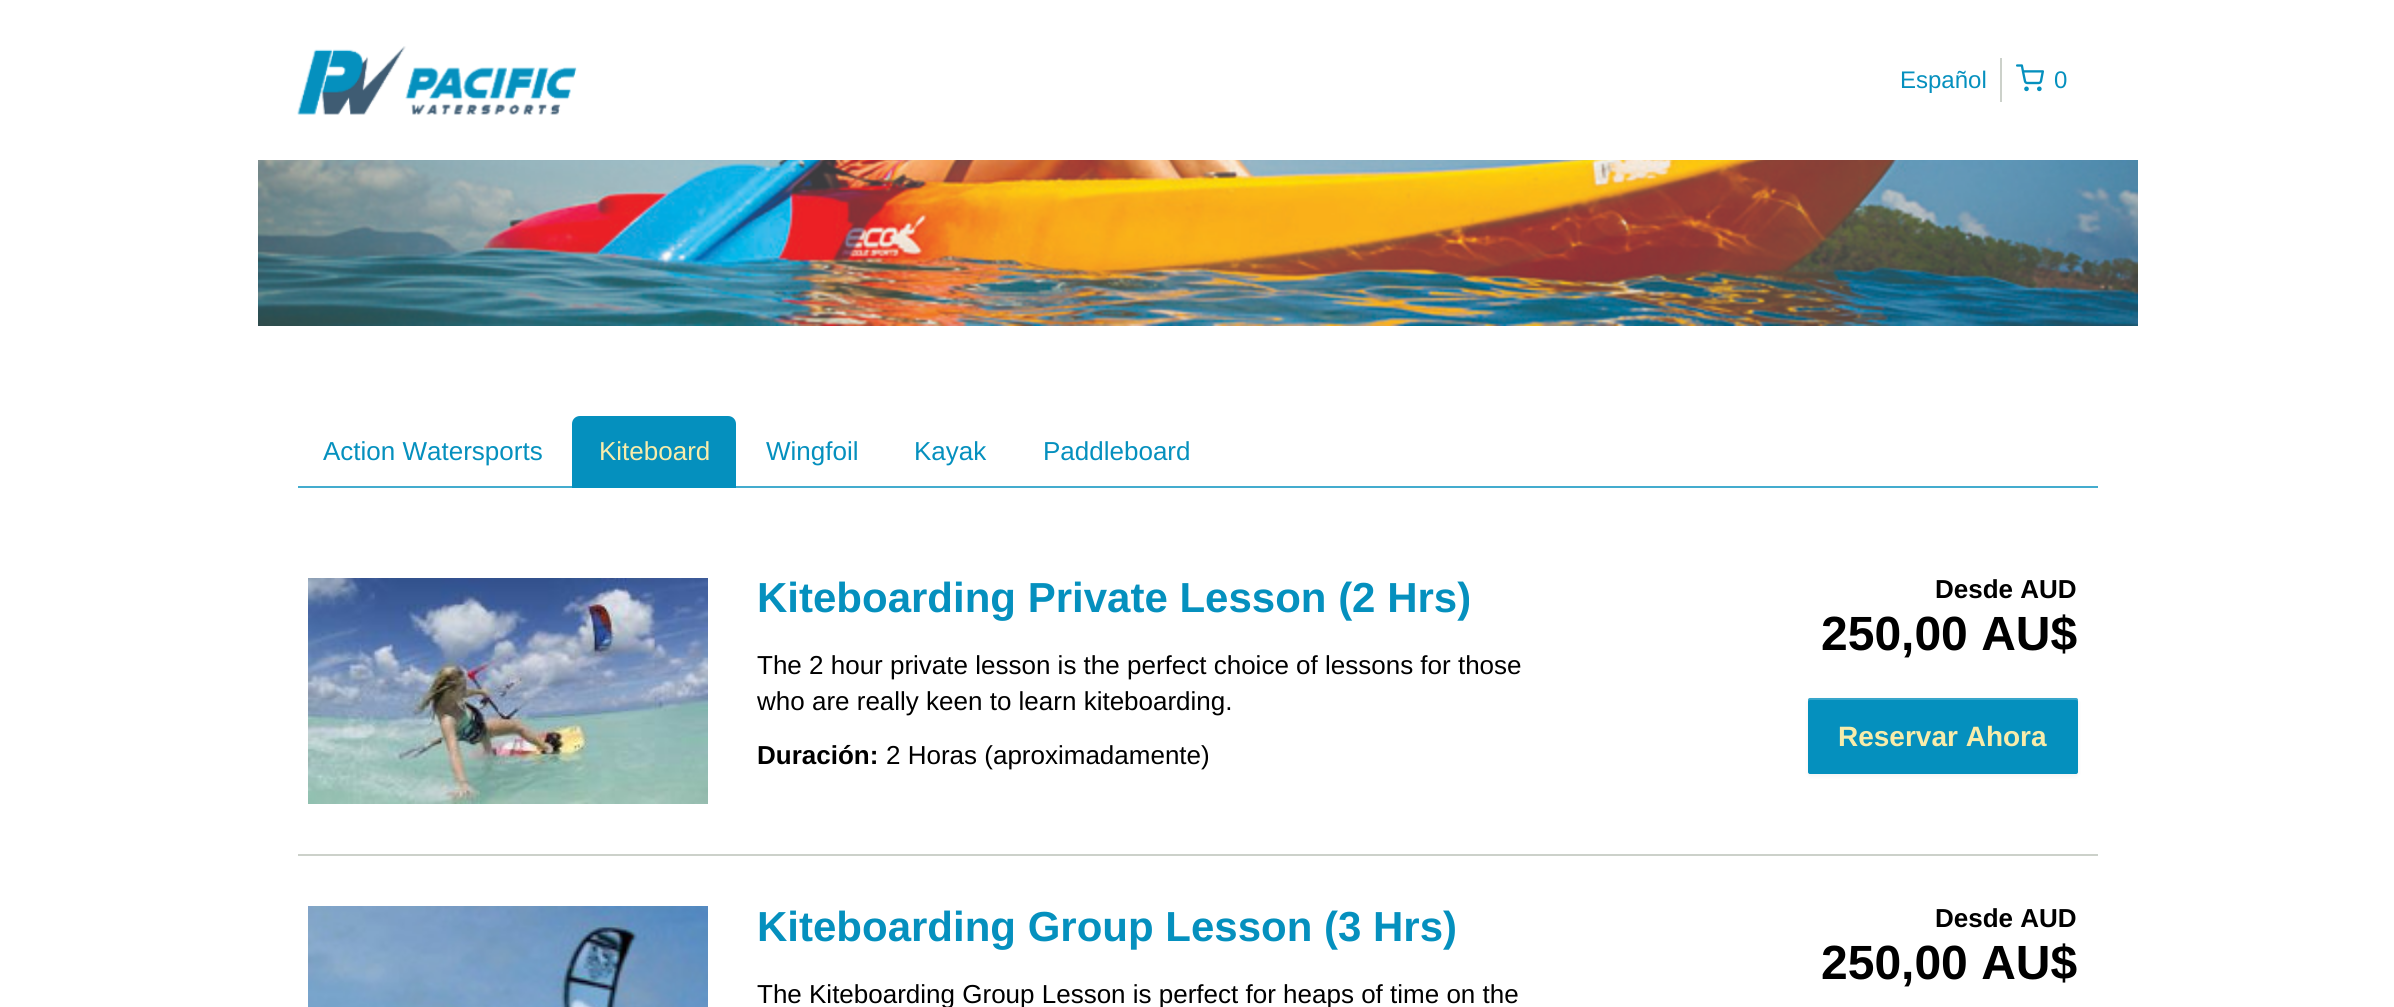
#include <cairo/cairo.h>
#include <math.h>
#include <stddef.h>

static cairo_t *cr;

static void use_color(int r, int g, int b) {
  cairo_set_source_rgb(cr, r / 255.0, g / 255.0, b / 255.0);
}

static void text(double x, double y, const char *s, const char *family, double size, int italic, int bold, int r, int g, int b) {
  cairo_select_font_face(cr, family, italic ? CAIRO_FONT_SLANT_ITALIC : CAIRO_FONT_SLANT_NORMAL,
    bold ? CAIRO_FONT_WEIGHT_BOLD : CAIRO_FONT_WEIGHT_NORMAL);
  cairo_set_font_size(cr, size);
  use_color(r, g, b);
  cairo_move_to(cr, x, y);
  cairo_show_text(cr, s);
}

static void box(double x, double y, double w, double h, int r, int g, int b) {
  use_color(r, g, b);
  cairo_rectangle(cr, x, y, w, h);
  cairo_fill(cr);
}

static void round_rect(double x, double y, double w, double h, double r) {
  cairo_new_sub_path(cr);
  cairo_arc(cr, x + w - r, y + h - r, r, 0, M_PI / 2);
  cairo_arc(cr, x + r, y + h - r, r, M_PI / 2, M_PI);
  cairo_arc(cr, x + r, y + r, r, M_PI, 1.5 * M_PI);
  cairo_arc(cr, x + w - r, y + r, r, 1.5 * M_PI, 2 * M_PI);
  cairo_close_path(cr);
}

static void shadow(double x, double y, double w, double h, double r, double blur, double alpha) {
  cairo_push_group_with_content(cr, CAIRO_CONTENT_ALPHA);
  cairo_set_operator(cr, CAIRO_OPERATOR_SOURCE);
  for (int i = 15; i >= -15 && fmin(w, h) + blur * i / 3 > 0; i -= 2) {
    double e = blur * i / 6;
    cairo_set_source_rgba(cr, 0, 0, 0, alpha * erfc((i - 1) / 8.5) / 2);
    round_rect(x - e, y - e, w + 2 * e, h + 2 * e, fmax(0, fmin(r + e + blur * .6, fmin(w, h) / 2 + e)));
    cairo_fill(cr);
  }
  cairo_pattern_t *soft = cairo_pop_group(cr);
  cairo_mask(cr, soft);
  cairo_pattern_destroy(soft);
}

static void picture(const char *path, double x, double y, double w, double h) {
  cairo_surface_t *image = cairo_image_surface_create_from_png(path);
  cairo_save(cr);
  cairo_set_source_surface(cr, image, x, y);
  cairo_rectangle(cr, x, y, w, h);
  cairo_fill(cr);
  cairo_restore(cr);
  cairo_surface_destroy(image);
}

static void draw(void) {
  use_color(255, 255, 255);
  cairo_paint(cr);
  picture("img_01.png", 297, 46, 280, 69);
  box(2000, 58, 2, 44, 204, 209, 202);
  picture("img_02.png", 2016, 64, 28, 28);
  picture("img_03.png", 258, 160, 1880, 166);
  box(298, 486, 1800, 2, 68, 172, 206);
  use_color(5, 144, 190);
  cairo_new_path(cr);
  cairo_move_to(cr, 580, 417);
  cairo_line_to(cr, 728, 417);
  cairo_curve_to(cr, 732, 417, 735, 420, 735, 424);
  cairo_line_to(cr, 735, 487);
  cairo_line_to(cr, 573, 487);
  cairo_line_to(cr, 573, 424);
  cairo_curve_to(cr, 573, 420, 576, 417, 580, 417);
  cairo_close_path(cr);
  cairo_fill_preserve(cr);
  cairo_stroke(cr);
  box(298, 854, 1800, 2, 204, 209, 202);
  picture("img_04.png", 308, 578, 400, 226);
  use_color(0, 0, 0);
  shadow(1808, 700, 270, 76, 2, 2, 0.05);
  use_color(5, 144, 190);
  round_rect(1808, 698, 270, 76, 2);
  cairo_fill(cr);
  cairo_set_source_rgba(cr, 1, 1, 1, 0.2);
  cairo_new_path(cr);
  cairo_move_to(cr, 1810, 700);
  cairo_line_to(cr, 2076, 700);
  cairo_curve_to(cr, 2077, 700, 2078, 701, 2078, 702);
  cairo_line_to(cr, 2078, 700);
  cairo_curve_to(cr, 2078, 699, 2077, 698, 2076, 698);
  cairo_line_to(cr, 1810, 698);
  cairo_curve_to(cr, 1809, 698, 1808, 699, 1808, 700);
  cairo_line_to(cr, 1808, 702);
  cairo_curve_to(cr, 1808, 701, 1809, 700, 1810, 700);
  cairo_close_path(cr);
  cairo_fill(cr);
  picture("img_05.png", 308, 906, 400, 101);
  text(1900, 88, "Español", "Liberation Sans", 24, 0, 0, 5, 144, 190);
  text(2054, 88, "0", "Liberation Sans", 24, 0, 0, 5, 144, 190);
  text(323, 460, "Action Watersports", "Liberation Sans", 26, 0, 0, 5, 144, 190);
  text(599, 460, "Kiteboard", "Liberation Sans", 26, 0, 0, 248, 236, 170);
  text(766, 460, "Wingfoil", "Liberation Sans", 26, 0, 0, 5, 144, 190);
  text(914, 460, "Kayak", "Liberation Sans", 26, 0, 0, 5, 144, 190);
  text(1043, 460, "Paddleboard", "Liberation Sans", 26, 0, 0, 5, 144, 190);
  text(757, 612, "Kiteboarding Private Lesson (2 Hrs)", "Liberation Sans", 42, 0, 1, 5, 144, 190);
  text(757, 674, "The 2 hour private lesson is the perfect choice of lessons for those", "Liberation Sans", 26, 0, 0, 0, 0, 0);
  text(757, 710, "who are really keen to learn kiteboarding.", "Liberation Sans", 26, 0, 0, 0, 0, 0);
  text(757, 764, "Duración:", "Liberation Sans", 26, 0, 1, 0, 0, 0);
  text(886, 764, "2 Horas (aproximadamente)", "Liberation Sans", 26, 0, 0, 0, 0, 0);
  text(1935, 598, "Desde AUD", "Liberation Sans", 26, 0, 1, 0, 0, 0);
  text(1821, 650, "250,00 AU$", "Liberation Sans", 48, 0, 1, 0, 0, 0);
  text(1838, 746, "Reservar Ahora", "Liberation Sans", 28, 0, 1, 248, 236, 170);
  text(757, 941, "Kiteboarding Group Lesson (3 Hrs)", "Liberation Sans", 42, 0, 1, 5, 144, 190);
  text(757, 1003, "The Kiteboarding Group Lesson is perfect for heaps of time on the", "Liberation Sans", 26, 0, 0, 0, 0, 0);
  text(1935, 927, "Desde AUD", "Liberation Sans", 26, 0, 1, 0, 0, 0);
  text(1821, 979, "250,00 AU$", "Liberation Sans", 48, 0, 1, 0, 0, 0);
}

int main(void) {
  cairo_surface_t *surface = cairo_image_surface_create(CAIRO_FORMAT_RGB24, 2394, 1007);
  cr = cairo_create(surface);
  cairo_font_options_t *options = cairo_font_options_create();
  cairo_font_options_set_hint_metrics(options, CAIRO_HINT_METRICS_OFF);
  cairo_font_options_set_hint_style(options, CAIRO_HINT_STYLE_NONE);
  cairo_set_font_options(cr, options);
  cairo_set_miter_limit(cr, 4);
  draw();
  cairo_surface_write_to_png(surface, "out.png");
  cairo_font_options_destroy(options);
  cairo_destroy(cr);
  cairo_surface_destroy(surface);
  return 0;
}
